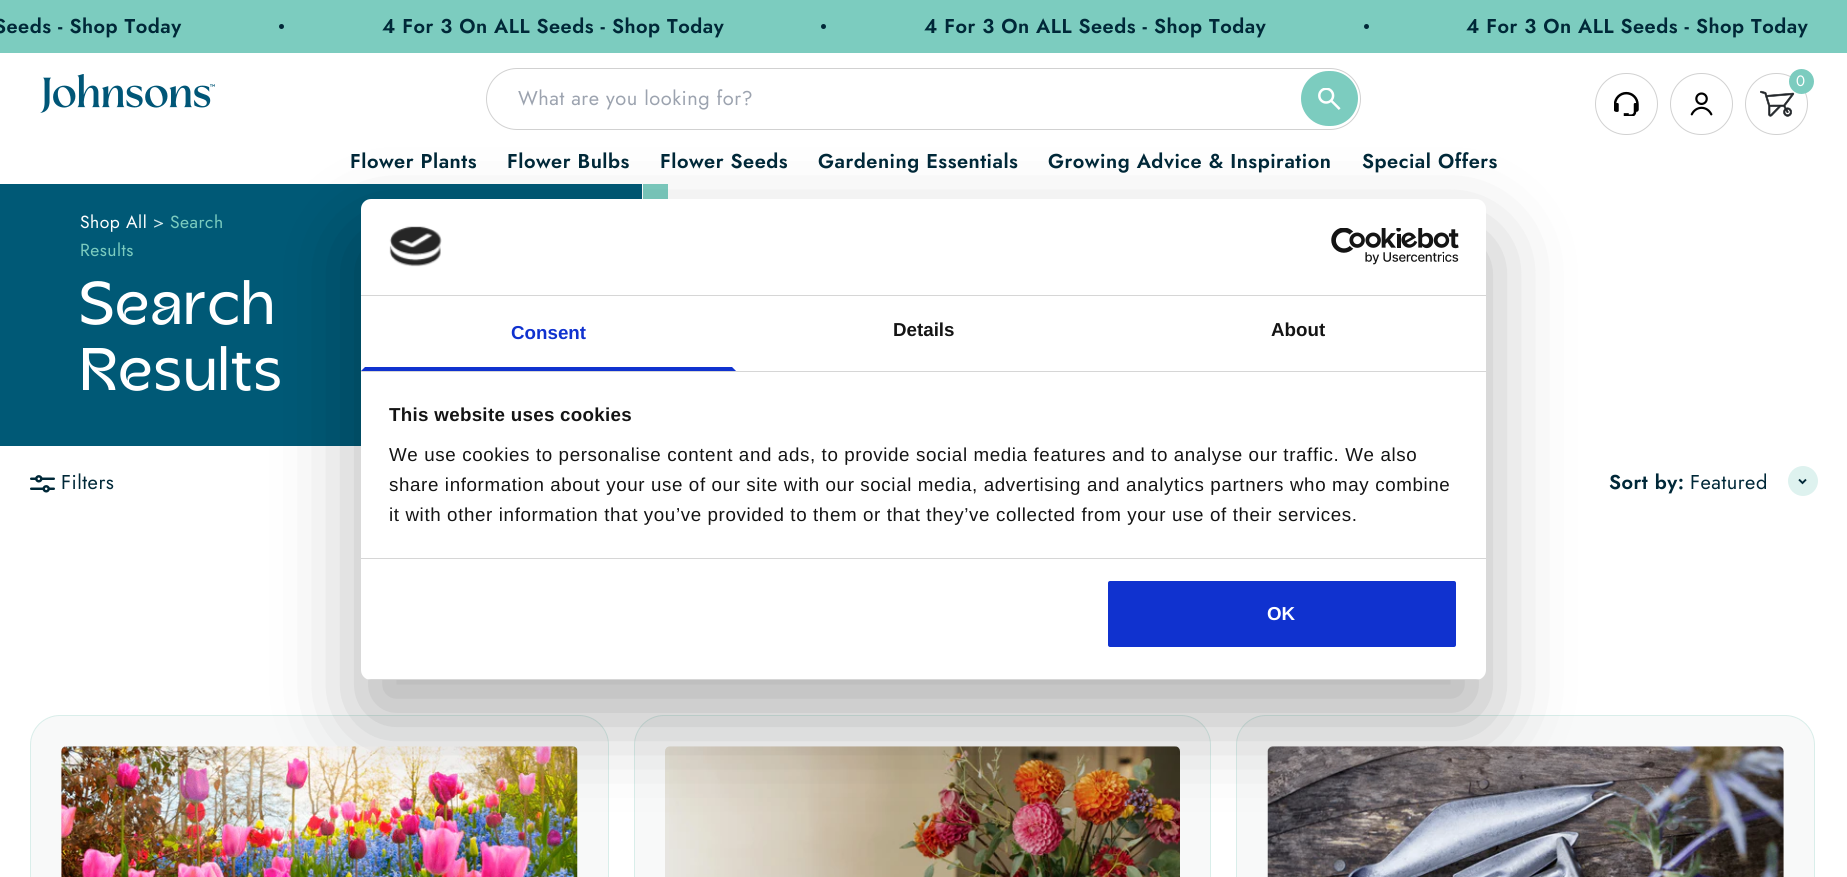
#include <cairo/cairo.h>
#include <math.h>
#include <stddef.h>

static cairo_t *cr;

static void use_color(int r, int g, int b) {
  cairo_set_source_rgb(cr, r / 255.0, g / 255.0, b / 255.0);
}

static void text(double x, double y, const char *s, const char *family, double size, int italic, int bold, int r, int g, int b) {
  cairo_select_font_face(cr, family, italic ? CAIRO_FONT_SLANT_ITALIC : CAIRO_FONT_SLANT_NORMAL,
    bold ? CAIRO_FONT_WEIGHT_BOLD : CAIRO_FONT_WEIGHT_NORMAL);
  cairo_set_font_size(cr, size);
  use_color(r, g, b);
  cairo_move_to(cr, x, y);
  cairo_show_text(cr, s);
}

static void spaced_text(double x, double y, const char *s, double letter, double word) {
  cairo_move_to(cr, x, y);
  while (*s) {
    char ch[5] = {0};
    int n = 0;
    do ch[n++] = *s++; while ((*s & 0xC0) == 0x80);
    cairo_show_text(cr, ch);
    cairo_rel_move_to(cr, letter + word * (*ch == ' '), 0);
  }
}

static void box(double x, double y, double w, double h, int r, int g, int b) {
  use_color(r, g, b);
  cairo_rectangle(cr, x, y, w, h);
  cairo_fill(cr);
}

static void round_rect(double x, double y, double w, double h, double r) {
  cairo_new_sub_path(cr);
  cairo_arc(cr, x + w - r, y + h - r, r, 0, M_PI / 2);
  cairo_arc(cr, x + r, y + h - r, r, M_PI / 2, M_PI);
  cairo_arc(cr, x + r, y + r, r, M_PI, 1.5 * M_PI);
  cairo_arc(cr, x + w - r, y + r, r, 1.5 * M_PI, 2 * M_PI);
  cairo_close_path(cr);
}

static void shadow(double x, double y, double w, double h, double r, double blur, double alpha) {
  cairo_push_group_with_content(cr, CAIRO_CONTENT_ALPHA);
  cairo_set_operator(cr, CAIRO_OPERATOR_SOURCE);
  for (int i = 15; i >= -15 && fmin(w, h) + blur * i / 3 > 0; i -= 2) {
    double e = blur * i / 6;
    cairo_set_source_rgba(cr, 0, 0, 0, alpha * erfc((i - 1) / 8.5) / 2);
    round_rect(x - e, y - e, w + 2 * e, h + 2 * e, fmax(0, fmin(r + e + blur * .6, fmin(w, h) / 2 + e)));
    cairo_fill(cr);
  }
  cairo_pattern_t *soft = cairo_pop_group(cr);
  cairo_mask(cr, soft);
  cairo_pattern_destroy(soft);
}

static void picture(const char *path, double x, double y, double w, double h) {
  cairo_surface_t *image = cairo_image_surface_create_from_png(path);
  cairo_save(cr);
  cairo_set_source_surface(cr, image, x, y);
  cairo_rectangle(cr, x, y, w, h);
  cairo_fill(cr);
  cairo_restore(cr);
  cairo_surface_destroy(image);
}

static void draw(void) {
  use_color(255, 255, 255);
  cairo_paint(cr);
  box(0, 0, 1847, 53, 124, 204, 191);
  use_color(0, 40, 56);
  cairo_arc(cr, 281.5, 26.5, 2.5, 0, 2 * M_PI);
  cairo_fill(cr);
  cairo_arc(cr, 823.5, 26.5, 2.5, 0, 2 * M_PI);
  cairo_fill(cr);
  cairo_arc(cr, 1366.5, 26.5, 2.5, 0, 2 * M_PI);
  cairo_fill(cr);
  picture("img_01.png", 40, 74, 175, 39);
  round_rect(1595.5, 73.5, 62, 61, 30.5);
  use_color(209, 209, 209);
  cairo_set_line_width(cr, 1);
  cairo_stroke(cr);
  picture("img_02.png", 1614, 91, 25, 25);
  round_rect(1670.5, 73.5, 62, 61, 30.5);
  cairo_stroke(cr);
  picture("img_03.png", 1690, 92, 23, 24);
  round_rect(1745.5, 73.5, 62, 61, 30.5);
  cairo_stroke(cr);
  picture("img_04.png", 1760, 90, 35, 27);
  use_color(124, 204, 191);
  cairo_arc(cr, 1801.5, 81.5, 12.5, 0, 2 * M_PI);
  cairo_fill(cr);
  round_rect(486.5, 68.5, 874, 61, 30.5);
  use_color(209, 209, 209);
  cairo_stroke(cr);
  use_color(124, 204, 191);
  round_rect(1301, 71, 57, 55, 27.5);
  cairo_fill(cr);
  picture("img_05.png", 1318, 88, 23, 22);
  use_color(0, 89, 118);
  cairo_new_path(cr);
  cairo_move_to(cr, 0, 184);
  cairo_line_to(cr, 642, 184);
  cairo_line_to(cr, 642, 346);
  cairo_curve_to(cr, 642, 401, 609, 446, 568, 446);
  cairo_line_to(cr, 0, 446);
  cairo_close_path(cr);
  cairo_fill(cr);
  box(643, 184, 25, 15, 124, 204, 191);
  picture("img_06.png", 30, 475, 25, 18);
  use_color(222, 242, 239);
  cairo_arc(cr, 1803, 481, 15, 0, 2 * M_PI);
  cairo_fill(cr);
  cairo_new_path(cr);
  cairo_move_to(cr, 1799, 479.5);
  cairo_line_to(cr, 1802.5, 483);
  cairo_line_to(cr, 1806, 479.5);
  use_color(0, 40, 56);
  cairo_set_line_width(cr, 1.9);
  cairo_stroke(cr);
  use_color(248, 249, 249);
  round_rect(30, 715, 579, 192, 30);
  cairo_fill(cr);
  round_rect(30.5, 715.5, 578, 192, 29.5);
  cairo_set_source_rgba(cr, 0.486, 0.8, 0.749, 0.25);
  cairo_set_line_width(cr, 1);
  cairo_stroke(cr);
  picture("img_07.png", 61, 746, 517, 131);
  use_color(248, 249, 249);
  round_rect(634, 715, 577, 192, 30);
  cairo_fill(cr);
  round_rect(634.5, 715.5, 576, 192, 29.5);
  cairo_set_source_rgba(cr, 0.486, 0.8, 0.749, 0.25);
  cairo_stroke(cr);
  picture("img_08.png", 665, 746, 515, 131);
  use_color(248, 249, 249);
  round_rect(1236, 715, 579, 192, 30);
  cairo_fill(cr);
  round_rect(1236.5, 715.5, 578, 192, 29.5);
  cairo_set_source_rgba(cr, 0.486, 0.8, 0.749, 0.25);
  cairo_stroke(cr);
  picture("img_09.png", 1267, 746, 517, 131);
  use_color(0, 0, 0);
  shadow(361, 239, 1125, 481, 10, 42.5, 0.3);
  use_color(255, 255, 255);
  round_rect(361, 199, 1125, 481, 10);
  cairo_fill(cr);
  box(361, 295, 1125, 1, 214, 214, 214);
  picture("img_10.png", 389, 226, 53, 41);
  picture("img_11.png", 1331, 228, 128, 37);
  box(361, 371, 1125, 1, 214, 214, 214);
  use_color(16, 50, 207);
  cairo_new_path(cr);
  cairo_move_to(cr, 736, 371);
  cairo_line_to(cr, 361, 371);
  cairo_line_to(cr, 365, 367);
  cairo_line_to(cr, 732, 367);
  cairo_close_path(cr);
  cairo_fill(cr);
  box(361, 558, 1125, 1, 214, 214, 214);
  cairo_save(cr);
  round_rect(361, 199, 1125, 481, 10);
  cairo_clip(cr);
  box(361, 679, 1125, 1, 214, 214, 214);
  cairo_restore(cr);
  use_color(16, 50, 207);
  round_rect(1106.5, 579.5, 351, 69, 3.5);
  cairo_fill_preserve(cr);
  use_color(255, 255, 255);
  cairo_set_line_width(cr, 3);
  cairo_stroke(cr);
  cairo_select_font_face(cr, "Jost SemiBold", CAIRO_FONT_SLANT_NORMAL, CAIRO_FONT_WEIGHT_NORMAL);
  cairo_set_font_size(cr, 20);
  use_color(0, 40, 56);
  spaced_text(-6, 33, "Seeds - Shop Today", 0.5, 0);
  spaced_text(382, 33, "4 For 3 On ALL Seeds - Shop Today", 0.5, 0);
  spaced_text(924, 33, "4 For 3 On ALL Seeds - Shop Today", 0.5, 0);
  spaced_text(1466, 33, "4 For 3 On ALL Seeds - Shop Today", 0.5, 0);
  cairo_select_font_face(cr, "Jost", CAIRO_FONT_SLANT_NORMAL, CAIRO_FONT_WEIGHT_NORMAL);
  cairo_set_font_size(cr, 15);
  use_color(255, 255, 255);
  spaced_text(1796, 86, "0", 0.5, 0);
  cairo_set_font_size(cr, 20);
  use_color(156, 163, 175);
  spaced_text(518, 105, "What are you looking for?", 0.5, 0);
  cairo_select_font_face(cr, "Jost SemiBold", CAIRO_FONT_SLANT_NORMAL, CAIRO_FONT_WEIGHT_NORMAL);
  use_color(0, 40, 56);
  spaced_text(350, 168, "Flower Plants", 0.5, 0);
  spaced_text(507, 168, "Flower Bulbs", 0.5, 0);
  spaced_text(660, 168, "Flower Seeds", 0.5, 0);
  spaced_text(818, 168, "Gardening Essentials", 0.5, 0);
  spaced_text(1048, 168, "Growing Advice & Inspiration", 0.5, 0);
  spaced_text(1362, 168, "Special Offers", 0.5, 0);
  cairo_select_font_face(cr, "Jost", CAIRO_FONT_SLANT_NORMAL, CAIRO_FONT_WEIGHT_NORMAL);
  cairo_set_font_size(cr, 17.5);
  use_color(255, 255, 255);
  spaced_text(80, 228, "Shop All", 0.5, 0);
  use_color(208, 230, 234);
  spaced_text(153, 228, ">", 0.5, 0);
  use_color(124, 204, 191);
  spaced_text(170, 228, "Search", 0.5, 0);
  spaced_text(80, 256, "Results", 0.5, 0);
  cairo_select_font_face(cr, "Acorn", CAIRO_FONT_SLANT_NORMAL, CAIRO_FONT_WEIGHT_NORMAL);
  cairo_set_font_size(cr, 60);
  use_color(255, 255, 255);
  spaced_text(80, 324, "Search", 1.5, 0);
  spaced_text(80, 390, "Results", 1.5, 0);
  cairo_select_font_face(cr, "Jost", CAIRO_FONT_SLANT_NORMAL, CAIRO_FONT_WEIGHT_NORMAL);
  cairo_set_font_size(cr, 20);
  use_color(0, 40, 56);
  spaced_text(61, 489, "Filters", 0.5, 0);
  cairo_select_font_face(cr, "Jost SemiBold", CAIRO_FONT_SLANT_NORMAL, CAIRO_FONT_WEIGHT_NORMAL);
  spaced_text(1609, 489, "Sort by:", 0.5, 0);
  cairo_select_font_face(cr, "Jost", CAIRO_FONT_SLANT_NORMAL, CAIRO_FONT_WEIGHT_NORMAL);
  spaced_text(1690, 489, "Featured", 0.5, 0);
  text(511, 339, "Consent", "Liberation Sans", 18.75, 0, 1, 16, 50, 207);
  text(893, 336, "Details", "Liberation Sans", 18.75, 0, 1, 20, 20, 20);
  text(1271, 336, "About", "Liberation Sans", 18.75, 0, 1, 20, 20, 20);
  spaced_text(389, 421, "This website uses cookies", 0.3, 0);
  cairo_select_font_face(cr, "Liberation Sans", CAIRO_FONT_SLANT_NORMAL, CAIRO_FONT_WEIGHT_NORMAL);
  spaced_text(389, 461, "We use cookies to personalise content and ads, to provide social media features and to analyse our traffic. We also", 0.62, 0);
  spaced_text(389, 491, "share information about your use of our site with our social media, advertising and analytics partners who may combine", 0.62, 0);
  spaced_text(389, 521, "it with other information that you’ve provided to them or that they’ve collected from your use of their services.", 0.62, 0);
  text(1267, 620, "OK", "Liberation Sans", 18.75, 0, 1, 255, 255, 255);
}

int main(void) {
  cairo_surface_t *surface = cairo_image_surface_create(CAIRO_FORMAT_RGB24, 1847, 877);
  cr = cairo_create(surface);
  cairo_font_options_t *options = cairo_font_options_create();
  cairo_font_options_set_hint_metrics(options, CAIRO_HINT_METRICS_OFF);
  cairo_font_options_set_hint_style(options, CAIRO_HINT_STYLE_NONE);
  cairo_set_font_options(cr, options);
  cairo_set_miter_limit(cr, 4);
  draw();
  cairo_surface_write_to_png(surface, "out.png");
  cairo_font_options_destroy(options);
  cairo_destroy(cr);
  cairo_surface_destroy(surface);
  return 0;
}
